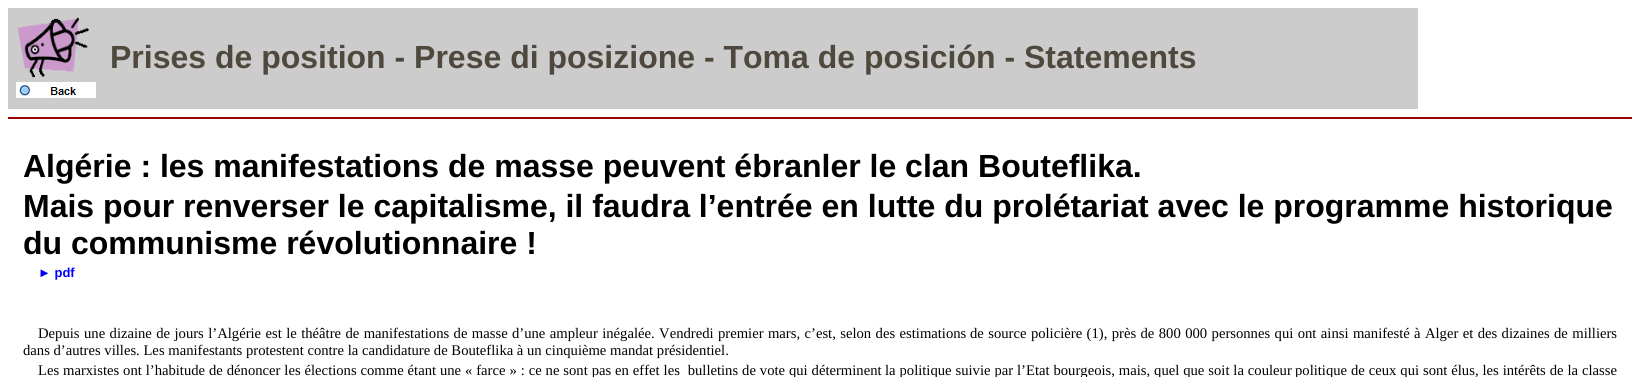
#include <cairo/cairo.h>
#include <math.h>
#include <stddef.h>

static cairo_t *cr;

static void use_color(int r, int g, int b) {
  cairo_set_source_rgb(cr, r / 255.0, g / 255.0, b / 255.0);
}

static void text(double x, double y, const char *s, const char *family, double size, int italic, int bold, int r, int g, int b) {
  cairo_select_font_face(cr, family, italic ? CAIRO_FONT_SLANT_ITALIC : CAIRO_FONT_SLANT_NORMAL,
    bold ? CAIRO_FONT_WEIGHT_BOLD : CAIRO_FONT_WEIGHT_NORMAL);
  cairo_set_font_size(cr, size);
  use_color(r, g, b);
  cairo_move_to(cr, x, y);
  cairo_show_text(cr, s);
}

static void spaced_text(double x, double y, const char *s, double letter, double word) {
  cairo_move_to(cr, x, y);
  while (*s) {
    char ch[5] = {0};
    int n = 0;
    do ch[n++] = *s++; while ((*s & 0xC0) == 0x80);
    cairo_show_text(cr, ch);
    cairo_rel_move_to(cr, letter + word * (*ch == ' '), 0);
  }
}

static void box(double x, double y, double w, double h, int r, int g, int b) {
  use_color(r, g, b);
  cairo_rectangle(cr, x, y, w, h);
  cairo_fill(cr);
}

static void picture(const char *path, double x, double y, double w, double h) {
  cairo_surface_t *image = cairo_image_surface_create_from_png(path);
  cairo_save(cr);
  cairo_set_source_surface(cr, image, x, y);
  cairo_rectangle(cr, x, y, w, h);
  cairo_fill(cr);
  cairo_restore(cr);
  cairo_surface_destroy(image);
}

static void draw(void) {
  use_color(255, 255, 255);
  cairo_paint(cr);
  box(8, 8, 1410, 101, 204, 204, 204);
  picture("img_01.png", 17, 17, 72, 61);
  picture("img_02.png", 16, 82, 80, 16);
  box(8, 117, 1624, 2, 153, 0, 0);
  text(110, 68, "Prises de position - Prese di posizione - Toma de posición - Statements", "Liberation Sans", 32, 0, 1, 78, 72, 61);
  text(23, 177, "Algérie : les manifestations de masse peuvent ébranler le clan Bouteflika.", "Liberation Sans", 32, 0, 1, 0, 0, 0);
  text(23, 217, "Mais pour renverser le capitalisme, il faudra l’entrée en lutte du prolétariat avec le programme historique", "Liberation Sans", 32, 0, 1, 0, 0, 0);
  text(23, 254, "du communisme révolutionnaire !", "Liberation Sans", 32, 0, 1, 0, 0, 0);
  text(38, 277, "► pdf", "Liberation Sans", 13, 0, 1, 0, 0, 255);
  text(38, 338, "Depuis", "Liberation Serif", 14.65, 0, 0, 0, 0, 0);
  spaced_text(84, 338, "une dizaine de jours l’Algérie est le théâtre de manifestations de masse", 0, 0.75);
  spaced_text(512, 338, "d’une ampleur inégalée. Vendredi premier mars, c’est, selon des estimations", 0, 0.75);
  spaced_text(970, 338, "de source policière (1), près de 800 000 personnes qui ont ainsi manifesté", 0, 0.75);
  spaced_text(1414, 338, "à Alger et des dizaines de milliers", 0, 0.75);
  text(23, 355, "dans d’autres villes. Les manifestants protestent contre la candidature de Bouteflika à un cinquième mandat présidentiel.", "Liberation Serif", 14.65, 0, 0, 0, 0, 0);
  text(38, 375, "Les", "Liberation Serif", 14.65, 0, 0, 0, 0, 0);
  spaced_text(63, 375, "marxistes ont l’habitude de dénoncer les élections comme étant une", 0, 0.25);
  spaced_text(465, 375, "« farce » : ce ne sont pas en effet les  bulletins de vote qui déterminent", 0, 0.25);
  spaced_text(885, 375, "la politique suivie par l’Etat bourgeois, mais, quel que soit la couleur", 0, 0.25);
  spaced_text(1295, 375, "politique de ceux qui sont élus, les intérêts de la classe", 0, 0.25);
}

int main(void) {
  cairo_surface_t *surface = cairo_image_surface_create(CAIRO_FORMAT_RGB24, 1640, 377);
  cr = cairo_create(surface);
  cairo_font_options_t *options = cairo_font_options_create();
  cairo_font_options_set_hint_metrics(options, CAIRO_HINT_METRICS_OFF);
  cairo_font_options_set_hint_style(options, CAIRO_HINT_STYLE_NONE);
  cairo_set_font_options(cr, options);
  cairo_set_miter_limit(cr, 4);
  draw();
  cairo_surface_write_to_png(surface, "out.png");
  cairo_font_options_destroy(options);
  cairo_destroy(cr);
  cairo_surface_destroy(surface);
  return 0;
}
